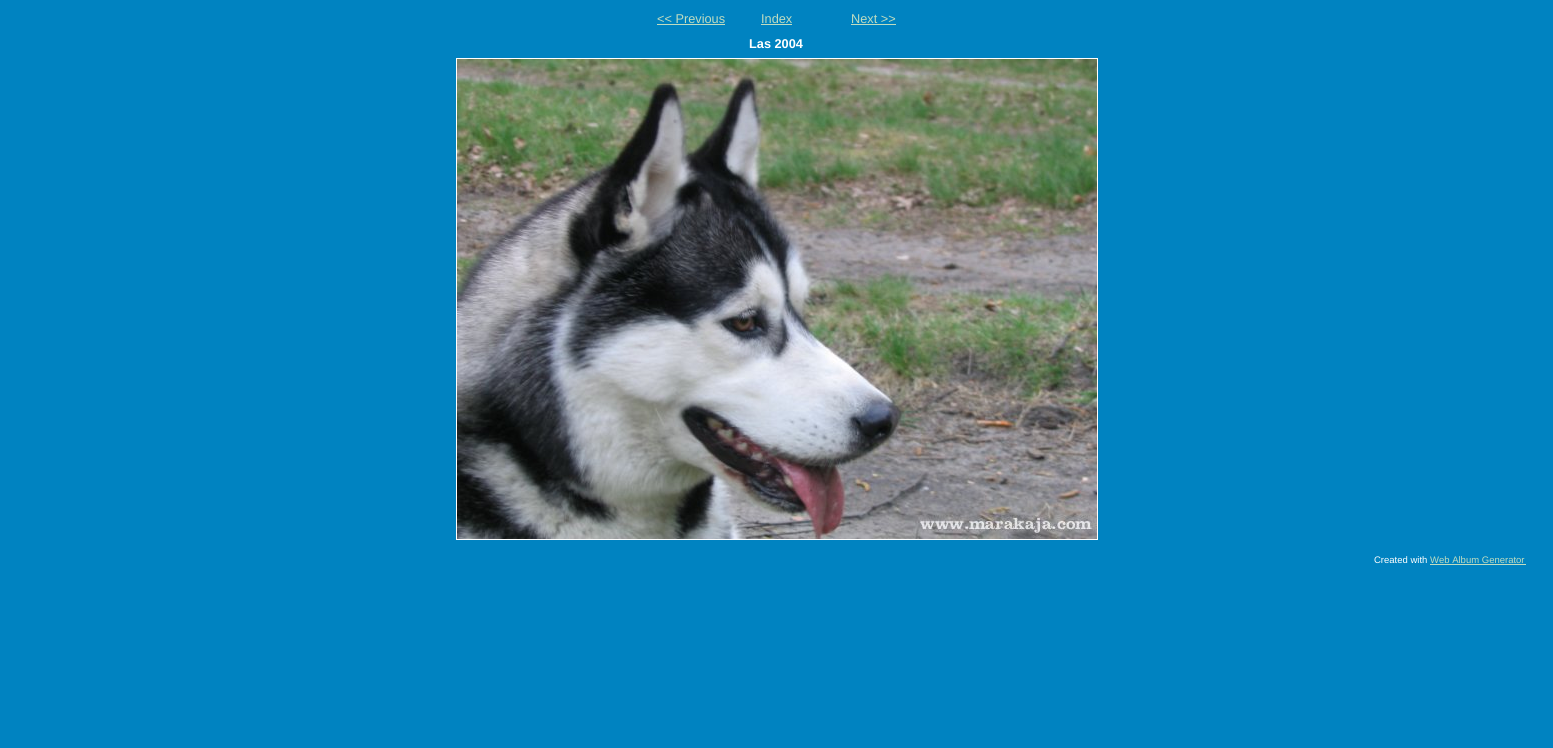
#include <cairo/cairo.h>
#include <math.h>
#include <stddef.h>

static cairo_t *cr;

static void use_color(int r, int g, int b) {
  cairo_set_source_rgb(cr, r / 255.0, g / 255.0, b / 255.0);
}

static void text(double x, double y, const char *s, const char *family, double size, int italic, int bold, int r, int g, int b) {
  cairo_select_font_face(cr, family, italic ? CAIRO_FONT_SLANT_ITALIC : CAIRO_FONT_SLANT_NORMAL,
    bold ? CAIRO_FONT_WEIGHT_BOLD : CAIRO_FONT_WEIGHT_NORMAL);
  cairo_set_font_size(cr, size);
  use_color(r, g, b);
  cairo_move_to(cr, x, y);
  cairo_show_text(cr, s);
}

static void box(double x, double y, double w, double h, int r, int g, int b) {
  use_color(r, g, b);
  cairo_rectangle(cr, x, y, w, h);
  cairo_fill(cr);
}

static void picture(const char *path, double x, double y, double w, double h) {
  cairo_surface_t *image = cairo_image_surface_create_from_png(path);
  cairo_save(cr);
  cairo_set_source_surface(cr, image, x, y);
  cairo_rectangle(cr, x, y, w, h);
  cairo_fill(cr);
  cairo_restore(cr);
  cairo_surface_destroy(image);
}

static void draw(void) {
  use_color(0, 131, 193);
  cairo_paint(cr);
  box(657, 24, 68, 1, 192, 220, 192);
  box(761, 24, 31, 1, 192, 220, 192);
  box(851, 24, 45, 1, 192, 220, 192);
  cairo_rectangle(cr, 456.5, 58.5, 641, 481);
  use_color(255, 255, 255);
  cairo_set_line_width(cr, 1);
  cairo_stroke(cr);
  picture("img_01.png", 457, 59, 640, 480);
  box(1430, 564, 96, 1, 192, 220, 192);
  text(657, 23, "<< Previous", "Liberation Sans", 12.75, 0, 0, 192, 220, 192);
  text(761, 23, "Index", "Liberation Sans", 12.75, 0, 0, 192, 220, 192);
  text(851, 23, "Next >>", "Liberation Sans", 12.75, 0, 0, 192, 220, 192);
  text(749, 48, "Las 2004", "Liberation Sans", 12.75, 0, 1, 255, 255, 255);
  text(1374, 563, "Created with", "Liberation Sans", 9.5, 0, 0, 255, 255, 255);
  text(1430, 563, "Web Album Generator", "Liberation Sans", 9.5, 0, 0, 192, 220, 192);
}

int main(void) {
  cairo_surface_t *surface = cairo_image_surface_create(CAIRO_FORMAT_RGB24, 1553, 748);
  cr = cairo_create(surface);
  cairo_font_options_t *options = cairo_font_options_create();
  cairo_font_options_set_hint_metrics(options, CAIRO_HINT_METRICS_OFF);
  cairo_font_options_set_hint_style(options, CAIRO_HINT_STYLE_NONE);
  cairo_set_font_options(cr, options);
  cairo_set_miter_limit(cr, 4);
  draw();
  cairo_surface_write_to_png(surface, "out.png");
  cairo_font_options_destroy(options);
  cairo_destroy(cr);
  cairo_surface_destroy(surface);
  return 0;
}
